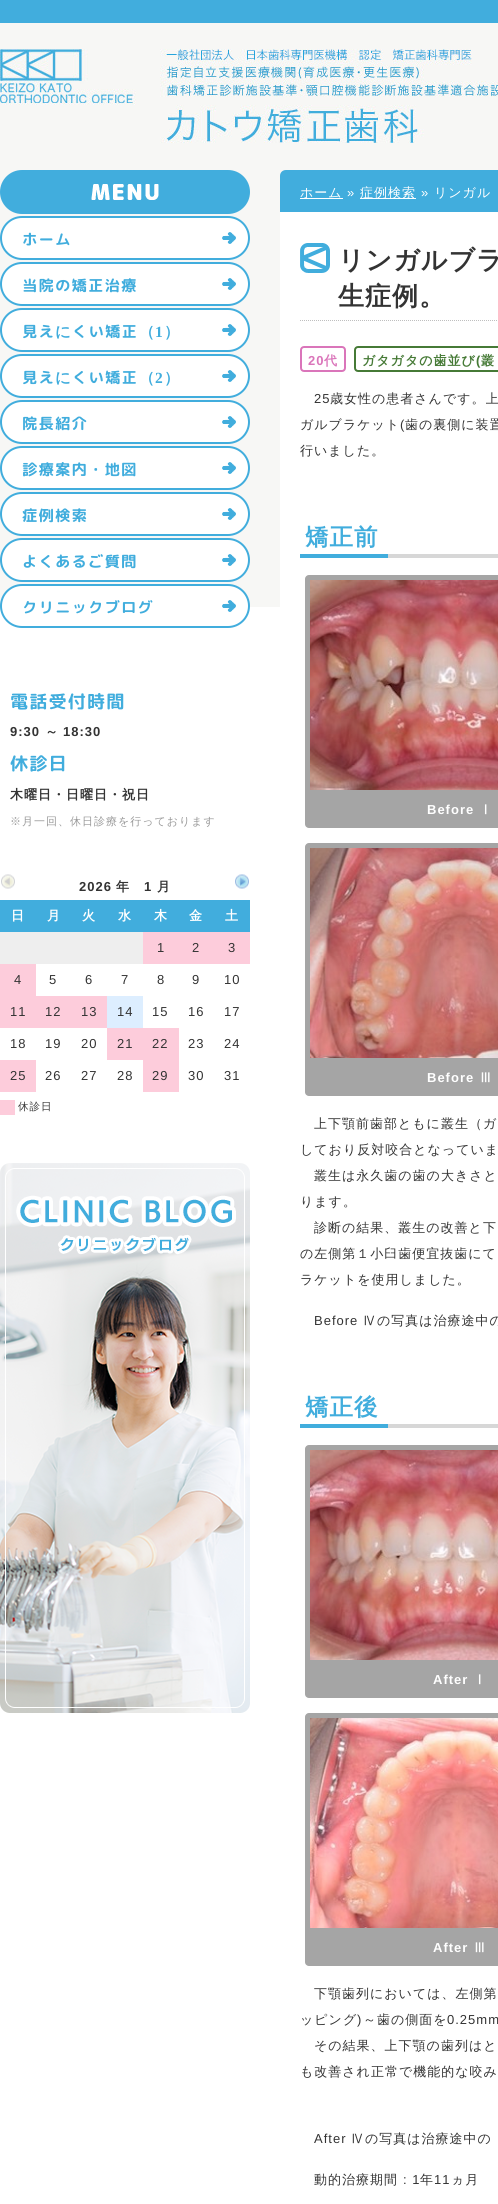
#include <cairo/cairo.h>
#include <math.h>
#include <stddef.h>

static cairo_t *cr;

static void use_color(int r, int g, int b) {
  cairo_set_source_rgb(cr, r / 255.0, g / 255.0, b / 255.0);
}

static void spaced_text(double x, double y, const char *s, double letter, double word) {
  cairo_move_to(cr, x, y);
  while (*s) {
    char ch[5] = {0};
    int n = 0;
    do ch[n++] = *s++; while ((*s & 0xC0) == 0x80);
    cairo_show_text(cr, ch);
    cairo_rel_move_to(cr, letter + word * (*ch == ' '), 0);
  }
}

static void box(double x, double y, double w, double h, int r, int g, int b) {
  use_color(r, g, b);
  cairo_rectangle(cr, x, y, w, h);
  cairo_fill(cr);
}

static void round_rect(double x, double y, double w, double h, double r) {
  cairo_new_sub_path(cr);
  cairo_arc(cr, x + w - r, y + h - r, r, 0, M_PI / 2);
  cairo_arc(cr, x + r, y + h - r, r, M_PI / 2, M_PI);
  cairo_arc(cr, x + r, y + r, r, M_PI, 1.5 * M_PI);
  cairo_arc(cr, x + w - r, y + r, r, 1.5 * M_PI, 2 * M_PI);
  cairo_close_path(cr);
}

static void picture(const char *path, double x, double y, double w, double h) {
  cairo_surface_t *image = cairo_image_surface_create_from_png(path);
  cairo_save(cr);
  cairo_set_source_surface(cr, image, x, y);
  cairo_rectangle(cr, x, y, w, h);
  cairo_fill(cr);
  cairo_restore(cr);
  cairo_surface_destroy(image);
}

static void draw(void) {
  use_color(255, 255, 255);
  cairo_paint(cr);
  picture("img_01.png", 0, 0, 498, 607);
  picture("img_02.png", 0, 49, 498, 94);
  use_color(65, 173, 221);
  round_rect(1, 171, 248, 42, 21);
  cairo_fill_preserve(cr);
  cairo_stroke(cr);
  picture("img_03.png", 91, 184, 68, 16);
  use_color(255, 255, 255);
  round_rect(1, 217, 248, 42, 21);
  cairo_fill_preserve(cr);
  use_color(65, 173, 221);
  cairo_stroke(cr);
  picture("img_04.png", 222, 232, 14, 12);
  use_color(255, 255, 255);
  round_rect(1, 263, 248, 42, 21);
  cairo_fill_preserve(cr);
  use_color(65, 173, 221);
  cairo_stroke(cr);
  picture("img_04.png", 222, 278, 14, 12);
  use_color(255, 255, 255);
  round_rect(1, 309, 248, 42, 21);
  cairo_fill_preserve(cr);
  use_color(65, 173, 221);
  cairo_stroke(cr);
  picture("img_05.png", 222, 324, 14, 12);
  use_color(255, 255, 255);
  round_rect(1, 355, 248, 42, 21);
  cairo_fill_preserve(cr);
  use_color(65, 173, 221);
  cairo_stroke(cr);
  picture("img_04.png", 222, 370, 14, 12);
  use_color(255, 255, 255);
  round_rect(1, 401, 248, 42, 21);
  cairo_fill_preserve(cr);
  use_color(65, 173, 221);
  cairo_stroke(cr);
  picture("img_04.png", 222, 416, 14, 12);
  use_color(255, 255, 255);
  round_rect(1, 447, 248, 42, 21);
  cairo_fill_preserve(cr);
  use_color(65, 173, 221);
  cairo_stroke(cr);
  picture("img_04.png", 222, 462, 14, 12);
  use_color(255, 255, 255);
  round_rect(1, 493, 248, 42, 21);
  cairo_fill_preserve(cr);
  use_color(65, 173, 221);
  cairo_stroke(cr);
  picture("img_04.png", 222, 508, 14, 12);
  use_color(255, 255, 255);
  round_rect(1, 539, 248, 42, 21);
  cairo_fill_preserve(cr);
  use_color(65, 173, 221);
  cairo_stroke(cr);
  picture("img_04.png", 222, 554, 14, 12);
  use_color(255, 255, 255);
  round_rect(1, 585, 248, 42, 21);
  cairo_fill_preserve(cr);
  use_color(65, 173, 221);
  cairo_stroke(cr);
  picture("img_04.png", 222, 600, 14, 12);
  picture("img_06.png", 1, 874, 14, 15);
  picture("img_07.png", 235, 874, 14, 15);
  box(0, 900, 250, 32, 65, 173, 221);
  box(0, 932, 143, 32, 238, 238, 238);
  box(143, 932, 107, 32, 253, 204, 219);
  box(0, 964, 36, 64, 253, 204, 219);
  box(36, 996, 71, 32, 253, 204, 219);
  box(107, 996, 36, 32, 221, 238, 255);
  box(107, 1028, 72, 32, 253, 204, 219);
  box(0, 1060, 36, 32, 253, 204, 219);
  box(143, 1060, 36, 32, 253, 204, 219);
  box(0, 1100, 15, 15, 253, 204, 219);
  picture("img_08.png", 0, 1163, 250, 550);
  use_color(65, 173, 221);
  cairo_new_path(cr);
  cairo_move_to(cr, 286, 170);
  cairo_line_to(cr, 498, 170);
  cairo_curve_to(cr, 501.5, 170, 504, 172.5, 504, 176);
  cairo_line_to(cr, 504, 212);
  cairo_line_to(cr, 280, 212);
  cairo_line_to(cr, 280, 176);
  cairo_curve_to(cr, 280, 172.5, 282.5, 170, 286, 170);
  cairo_close_path(cr);
  cairo_fill(cr);
  box(300, 198, 43, 1, 255, 255, 255);
  box(360, 198, 56, 1, 255, 255, 255);
  box(280, 212, 218, 395, 255, 255, 255);
  picture("img_09.png", 300, 243, 30, 30);
  cairo_new_path(cr);
  cairo_move_to(cr, 300, 320.5);
  cairo_line_to(cr, 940, 320.5);
  use_color(191, 191, 191);
  cairo_set_line_width(cr, 1);
  cairo_set_dash(cr, (double[]){1, 1}, 2, 0);
  cairo_stroke(cr);
  round_rect(301, 347, 44, 24, 3);
  use_color(218, 117, 186);
  cairo_set_line_width(cr, 2);
  cairo_set_dash(cr, NULL, 0, 0);
  cairo_stroke(cr);
  round_rect(355, 347, 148, 24, 3);
  use_color(70, 122, 54);
  cairo_stroke(cr);
  box(388, 554, 110, 4, 215, 215, 215);
  box(300, 554, 88, 4, 65, 173, 221);
  use_color(165, 165, 165);
  round_rect(305, 575, 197, 253, 4);
  cairo_fill(cr);
  picture("img_10.png", 310, 580, 188, 210);
  round_rect(305, 843, 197, 253, 4);
  cairo_fill(cr);
  picture("img_11.png", 310, 848, 188, 210);
  box(388, 1424, 110, 4, 215, 215, 215);
  box(300, 1424, 88, 4, 65, 173, 221);
  use_color(165, 165, 165);
  round_rect(305, 1445, 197, 253, 4);
  cairo_fill(cr);
  picture("img_12.png", 310, 1450, 188, 210);
  round_rect(305, 1713, 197, 253, 4);
  cairo_fill(cr);
  picture("img_13.png", 310, 1718, 188, 210);
  cairo_select_font_face(cr, "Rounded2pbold", CAIRO_FONT_SLANT_NORMAL, CAIRO_FONT_WEIGHT_BOLD);
  cairo_set_font_size(cr, 15.5);
  use_color(65, 173, 221);
  spaced_text(22, 245, "ホーム", 1, 0);
  spaced_text(22, 291, "当院の矯正治療", 1, 0);
  spaced_text(22, 337, "見え", 1, 0);
  cairo_select_font_face(cr, "WenQuanYi Zen Hei", CAIRO_FONT_SLANT_NORMAL, CAIRO_FONT_WEIGHT_BOLD);
  spaced_text(55, 337, "に", 1, 0);
  cairo_select_font_face(cr, "Rounded2pbold", CAIRO_FONT_SLANT_NORMAL, CAIRO_FONT_WEIGHT_BOLD);
  spaced_text(72, 337, "くい矯正", 1, 0);
  cairo_select_font_face(cr, "WenQuanYi Zen Hei", CAIRO_FONT_SLANT_NORMAL, CAIRO_FONT_WEIGHT_BOLD);
  spaced_text(139, 337, "（", 1, 0);
  cairo_select_font_face(cr, "Liberation Serif", CAIRO_FONT_SLANT_NORMAL, CAIRO_FONT_WEIGHT_BOLD);
  spaced_text(155, 337, "1", 1, 0);
  cairo_select_font_face(cr, "WenQuanYi Zen Hei", CAIRO_FONT_SLANT_NORMAL, CAIRO_FONT_WEIGHT_BOLD);
  spaced_text(164, 337, "）", 1, 0);
  cairo_select_font_face(cr, "Rounded2pbold", CAIRO_FONT_SLANT_NORMAL, CAIRO_FONT_WEIGHT_BOLD);
  spaced_text(22, 383, "見え", 1, 0);
  cairo_select_font_face(cr, "WenQuanYi Zen Hei", CAIRO_FONT_SLANT_NORMAL, CAIRO_FONT_WEIGHT_BOLD);
  spaced_text(55, 383, "に", 1, 0);
  cairo_select_font_face(cr, "Rounded2pbold", CAIRO_FONT_SLANT_NORMAL, CAIRO_FONT_WEIGHT_BOLD);
  spaced_text(72, 383, "くい矯正", 1, 0);
  cairo_select_font_face(cr, "WenQuanYi Zen Hei", CAIRO_FONT_SLANT_NORMAL, CAIRO_FONT_WEIGHT_BOLD);
  spaced_text(139, 383, "（", 1, 0);
  cairo_select_font_face(cr, "Liberation Serif", CAIRO_FONT_SLANT_NORMAL, CAIRO_FONT_WEIGHT_BOLD);
  spaced_text(155, 383, "2", 1, 0);
  cairo_select_font_face(cr, "WenQuanYi Zen Hei", CAIRO_FONT_SLANT_NORMAL, CAIRO_FONT_WEIGHT_BOLD);
  spaced_text(164, 383, "）", 1, 0);
  cairo_select_font_face(cr, "Rounded2pbold", CAIRO_FONT_SLANT_NORMAL, CAIRO_FONT_WEIGHT_BOLD);
  spaced_text(22, 429, "院長紹介", 1, 0);
  spaced_text(22, 475, "診療案内・地図", 1, 0);
  spaced_text(22, 521, "症例検索", 1, 0);
  spaced_text(22, 567, "よくあるご質問", 1, 0);
  spaced_text(22, 613, "クリニックブログ", 1, 0);
  cairo_set_font_size(cr, 18.25);
  spaced_text(10, 708, "電話受付時間", 1, 0);
  cairo_select_font_face(cr, "Liberation Sans", CAIRO_FONT_SLANT_NORMAL, CAIRO_FONT_WEIGHT_BOLD);
  cairo_set_font_size(cr, 13);
  use_color(51, 51, 51);
  spaced_text(10, 736, "9:30", 1, 0);
  cairo_select_font_face(cr, "WenQuanYi Zen Hei", CAIRO_FONT_SLANT_NORMAL, CAIRO_FONT_WEIGHT_BOLD);
  spaced_text(45, 736, "～", 1, 0);
  cairo_select_font_face(cr, "Liberation Sans", CAIRO_FONT_SLANT_NORMAL, CAIRO_FONT_WEIGHT_BOLD);
  spaced_text(63, 736, "18:30", 1, 0);
  cairo_select_font_face(cr, "Rounded2pbold", CAIRO_FONT_SLANT_NORMAL, CAIRO_FONT_WEIGHT_BOLD);
  cairo_set_font_size(cr, 18.25);
  use_color(65, 173, 221);
  spaced_text(10, 770, "休診日", 1, 0);
  cairo_select_font_face(cr, "WenQuanYi Zen Hei", CAIRO_FONT_SLANT_NORMAL, CAIRO_FONT_WEIGHT_BOLD);
  cairo_set_font_size(cr, 13);
  use_color(51, 51, 51);
  spaced_text(10, 799, "木曜日・日曜日・祝日", 1, 0);
  cairo_select_font_face(cr, "WenQuanYi Zen Hei Medium", CAIRO_FONT_SLANT_NORMAL, CAIRO_FONT_WEIGHT_NORMAL);
  cairo_set_font_size(cr, 11);
  use_color(153, 153, 153);
  spaced_text(10, 825, "※月一回、休日診療を行っております", 1, 0);
  cairo_select_font_face(cr, "Liberation Sans", CAIRO_FONT_SLANT_NORMAL, CAIRO_FONT_WEIGHT_BOLD);
  cairo_set_font_size(cr, 13);
  use_color(51, 51, 51);
  spaced_text(79, 891, "2026", 1, 0);
  cairo_select_font_face(cr, "WenQuanYi Zen Hei", CAIRO_FONT_SLANT_NORMAL, CAIRO_FONT_WEIGHT_BOLD);
  spaced_text(116, 891, "年", 1, 0);
  cairo_select_font_face(cr, "Liberation Sans", CAIRO_FONT_SLANT_NORMAL, CAIRO_FONT_WEIGHT_BOLD);
  spaced_text(144, 891, "1", 1, 0);
  cairo_select_font_face(cr, "WenQuanYi Zen Hei", CAIRO_FONT_SLANT_NORMAL, CAIRO_FONT_WEIGHT_BOLD);
  spaced_text(157, 891, "月", 1, 0);
  use_color(255, 255, 255);
  spaced_text(11, 920, "日", 1, 0);
  spaced_text(47, 920, "月", 1, 0);
  spaced_text(82, 920, "火", 1, 0);
  spaced_text(118, 920, "水", 1, 0);
  spaced_text(154, 920, "木", 1, 0);
  spaced_text(189, 920, "金", 1, 0);
  spaced_text(225, 920, "土", 1, 0);
  cairo_select_font_face(cr, "Liberation Sans", CAIRO_FONT_SLANT_NORMAL, CAIRO_FONT_WEIGHT_NORMAL);
  use_color(51, 51, 51);
  spaced_text(157, 952, "1", 1, 0);
  spaced_text(192, 952, "2", 1, 0);
  spaced_text(228, 952, "3", 1, 0);
  spaced_text(14, 984, "4", 1, 0);
  spaced_text(49, 984, "5", 1, 0);
  spaced_text(85, 984, "6", 1, 0);
  spaced_text(121, 984, "7", 1, 0);
  spaced_text(157, 984, "8", 1, 0);
  spaced_text(192, 984, "9", 1, 0);
  spaced_text(224, 984, "10", 1, 0);
  spaced_text(10, 1016, "11", 1, 0);
  spaced_text(45, 1016, "12", 1, 0);
  spaced_text(81, 1016, "13", 1, 0);
  spaced_text(117, 1016, "14", 1, 0);
  spaced_text(152, 1016, "15", 1, 0);
  spaced_text(188, 1016, "16", 1, 0);
  spaced_text(224, 1016, "17", 1, 0);
  spaced_text(10, 1048, "18", 1, 0);
  spaced_text(45, 1048, "19", 1, 0);
  spaced_text(81, 1048, "20", 1, 0);
  spaced_text(117, 1048, "21", 1, 0);
  spaced_text(152, 1048, "22", 1, 0);
  spaced_text(188, 1048, "23", 1, 0);
  spaced_text(224, 1048, "24", 1, 0);
  spaced_text(10, 1080, "25", 1, 0);
  spaced_text(45, 1080, "26", 1, 0);
  spaced_text(81, 1080, "27", 1, 0);
  spaced_text(117, 1080, "28", 1, 0);
  spaced_text(152, 1080, "29", 1, 0);
  spaced_text(188, 1080, "30", 1, 0);
  spaced_text(224, 1080, "31", 1, 0);
  cairo_select_font_face(cr, "WenQuanYi Zen Hei Medium", CAIRO_FONT_SLANT_NORMAL, CAIRO_FONT_WEIGHT_NORMAL);
  cairo_set_font_size(cr, 10.5);
  spaced_text(18, 1110, "休診日", 1, 0);
  cairo_set_font_size(cr, 13);
  use_color(255, 255, 255);
  spaced_text(300, 197, "ホーム", 1, 0);
  cairo_select_font_face(cr, "Liberation Sans", CAIRO_FONT_SLANT_NORMAL, CAIRO_FONT_WEIGHT_NORMAL);
  spaced_text(347, 197, "»", 1, 0);
  cairo_select_font_face(cr, "WenQuanYi Zen Hei Medium", CAIRO_FONT_SLANT_NORMAL, CAIRO_FONT_WEIGHT_NORMAL);
  spaced_text(360, 197, "症例検索", 1, 0);
  cairo_select_font_face(cr, "Liberation Sans", CAIRO_FONT_SLANT_NORMAL, CAIRO_FONT_WEIGHT_NORMAL);
  spaced_text(421, 197, "»", 1, 0);
  cairo_select_font_face(cr, "WenQuanYi Zen Hei Medium", CAIRO_FONT_SLANT_NORMAL, CAIRO_FONT_WEIGHT_NORMAL);
  spaced_text(434, 197, "リンガル", 1, 0);
  cairo_select_font_face(cr, "WenQuanYi Zen Hei", CAIRO_FONT_SLANT_NORMAL, CAIRO_FONT_WEIGHT_BOLD);
  cairo_set_font_size(cr, 26);
  use_color(51, 51, 51);
  spaced_text(338, 269, "リンガルブラ", 1, 0);
  spaced_text(338, 305, "生症例。", 1, 0);
  cairo_select_font_face(cr, "Liberation Sans", CAIRO_FONT_SLANT_NORMAL, CAIRO_FONT_WEIGHT_BOLD);
  cairo_set_font_size(cr, 13);
  use_color(218, 117, 186);
  spaced_text(308, 365, "20", 1, 0);
  cairo_select_font_face(cr, "WenQuanYi Zen Hei", CAIRO_FONT_SLANT_NORMAL, CAIRO_FONT_WEIGHT_BOLD);
  spaced_text(324, 365, "代", 1, 0);
  use_color(70, 122, 54);
  spaced_text(362, 365, "ガタガタの歯並び", 1, 0);
  cairo_select_font_face(cr, "Liberation Sans", CAIRO_FONT_SLANT_NORMAL, CAIRO_FONT_WEIGHT_BOLD);
  spaced_text(476, 365, "(", 1, 0);
  cairo_select_font_face(cr, "WenQuanYi Zen Hei", CAIRO_FONT_SLANT_NORMAL, CAIRO_FONT_WEIGHT_BOLD);
  spaced_text(481, 365, "叢", 1, 0);
  cairo_select_font_face(cr, "Liberation Sans", CAIRO_FONT_SLANT_NORMAL, CAIRO_FONT_WEIGHT_NORMAL);
  use_color(51, 51, 51);
  spaced_text(314, 403, "25", 1, 0);
  cairo_select_font_face(cr, "WenQuanYi Zen Hei Medium", CAIRO_FONT_SLANT_NORMAL, CAIRO_FONT_WEIGHT_NORMAL);
  spaced_text(330, 403, "歳女性の患者さんです。上", 1, 0);
  spaced_text(300, 429, "ガルブラケット", 1, 0);
  cairo_select_font_face(cr, "Liberation Sans", CAIRO_FONT_SLANT_NORMAL, CAIRO_FONT_WEIGHT_NORMAL);
  spaced_text(400, 429, "(", 1, 0);
  cairo_select_font_face(cr, "WenQuanYi Zen Hei Medium", CAIRO_FONT_SLANT_NORMAL, CAIRO_FONT_WEIGHT_NORMAL);
  spaced_text(405, 429, "歯の裏側に装置", 1, 0);
  spaced_text(300, 455, "行いました。", 1, 0);
  cairo_select_font_face(cr, "WenQuanYi Zen Hei", CAIRO_FONT_SLANT_NORMAL, CAIRO_FONT_WEIGHT_BOLD);
  cairo_set_font_size(cr, 23.5);
  use_color(65, 173, 221);
  spaced_text(305, 545, "矯正前", 1, 0);
  cairo_select_font_face(cr, "Liberation Sans", CAIRO_FONT_SLANT_NORMAL, CAIRO_FONT_WEIGHT_BOLD);
  cairo_set_font_size(cr, 13);
  use_color(255, 255, 255);
  spaced_text(427, 814, "Before", 1, 0);
  cairo_select_font_face(cr, "WenQuanYi Zen Hei", CAIRO_FONT_SLANT_NORMAL, CAIRO_FONT_WEIGHT_BOLD);
  spaced_text(479, 814, "Ⅰ", 1, 0);
  cairo_select_font_face(cr, "Liberation Sans", CAIRO_FONT_SLANT_NORMAL, CAIRO_FONT_WEIGHT_BOLD);
  spaced_text(427, 1082, "Before", 1, 0);
  cairo_select_font_face(cr, "WenQuanYi Zen Hei", CAIRO_FONT_SLANT_NORMAL, CAIRO_FONT_WEIGHT_BOLD);
  spaced_text(479, 1082, "Ⅲ", 1, 0);
  cairo_select_font_face(cr, "WenQuanYi Zen Hei Medium", CAIRO_FONT_SLANT_NORMAL, CAIRO_FONT_WEIGHT_NORMAL);
  use_color(51, 51, 51);
  spaced_text(314, 1128, "上下顎前歯部ともに叢生（ガ", 1, 0);
  spaced_text(300, 1154, "しており反対咬合となっていま", 1, 0);
  spaced_text(314, 1180, "叢生は永久歯の歯の大きさと", 1, 0);
  spaced_text(300, 1206, "ります。", 1, 0);
  spaced_text(314, 1232, "診断の結果、叢生の改善と下", 1, 0);
  spaced_text(300, 1258, "の左側第１小臼歯便宜抜歯にて", 1, 0);
  spaced_text(300, 1284, "ラケットを使用しました。", 1, 0);
  cairo_select_font_face(cr, "Liberation Sans", CAIRO_FONT_SLANT_NORMAL, CAIRO_FONT_WEIGHT_NORMAL);
  spaced_text(314, 1325, "Before", 1, 0);
  cairo_select_font_face(cr, "WenQuanYi Zen Hei Medium", CAIRO_FONT_SLANT_NORMAL, CAIRO_FONT_WEIGHT_NORMAL);
  spaced_text(363, 1325, "Ⅳの写真は治療途中の", 1, 0);
  cairo_select_font_face(cr, "WenQuanYi Zen Hei", CAIRO_FONT_SLANT_NORMAL, CAIRO_FONT_WEIGHT_BOLD);
  cairo_set_font_size(cr, 23.5);
  use_color(65, 173, 221);
  spaced_text(305, 1415, "矯正後", 1, 0);
  cairo_select_font_face(cr, "Liberation Sans", CAIRO_FONT_SLANT_NORMAL, CAIRO_FONT_WEIGHT_BOLD);
  cairo_set_font_size(cr, 13);
  use_color(255, 255, 255);
  spaced_text(433, 1684, "After", 1, 0);
  cairo_select_font_face(cr, "WenQuanYi Zen Hei", CAIRO_FONT_SLANT_NORMAL, CAIRO_FONT_WEIGHT_BOLD);
  spaced_text(473, 1684, "Ⅰ", 1, 0);
  cairo_select_font_face(cr, "Liberation Sans", CAIRO_FONT_SLANT_NORMAL, CAIRO_FONT_WEIGHT_BOLD);
  spaced_text(433, 1952, "After", 1, 0);
  cairo_select_font_face(cr, "WenQuanYi Zen Hei", CAIRO_FONT_SLANT_NORMAL, CAIRO_FONT_WEIGHT_BOLD);
  spaced_text(473, 1952, "Ⅲ", 1, 0);
  cairo_select_font_face(cr, "WenQuanYi Zen Hei Medium", CAIRO_FONT_SLANT_NORMAL, CAIRO_FONT_WEIGHT_NORMAL);
  use_color(51, 51, 51);
  spaced_text(314, 1998, "下顎歯列においては、左側第", 1, 0);
  spaced_text(300, 2024, "ッピング", 1, 0);
  cairo_select_font_face(cr, "Liberation Sans", CAIRO_FONT_SLANT_NORMAL, CAIRO_FONT_WEIGHT_NORMAL);
  spaced_text(357, 2024, ")", 1, 0);
  cairo_select_font_face(cr, "WenQuanYi Zen Hei Medium", CAIRO_FONT_SLANT_NORMAL, CAIRO_FONT_WEIGHT_NORMAL);
  spaced_text(363, 2024, "～歯の側面を", 1, 0);
  cairo_select_font_face(cr, "Liberation Sans", CAIRO_FONT_SLANT_NORMAL, CAIRO_FONT_WEIGHT_NORMAL);
  spaced_text(447, 2024, "0.25mm", 1, 0);
  cairo_select_font_face(cr, "WenQuanYi Zen Hei Medium", CAIRO_FONT_SLANT_NORMAL, CAIRO_FONT_WEIGHT_NORMAL);
  spaced_text(314, 2050, "その結果、上下顎の歯列はと", 1, 0);
  spaced_text(300, 2076, "も改善され正常で機能的な咬み", 1, 0);
  cairo_select_font_face(cr, "Liberation Sans", CAIRO_FONT_SLANT_NORMAL, CAIRO_FONT_WEIGHT_NORMAL);
  spaced_text(314, 2143, "After", 1, 0);
  cairo_select_font_face(cr, "WenQuanYi Zen Hei Medium", CAIRO_FONT_SLANT_NORMAL, CAIRO_FONT_WEIGHT_NORMAL);
  spaced_text(351, 2143, "Ⅳの写真は治療途中の", 1, 0);
  spaced_text(314, 2184, "動的治療期間", 1, 0);
  cairo_select_font_face(cr, "Liberation Sans", CAIRO_FONT_SLANT_NORMAL, CAIRO_FONT_WEIGHT_NORMAL);
  spaced_text(403, 2184, ": 1", 1, 0);
  cairo_select_font_face(cr, "WenQuanYi Zen Hei Medium", CAIRO_FONT_SLANT_NORMAL, CAIRO_FONT_WEIGHT_NORMAL);
  spaced_text(420, 2184, "年", 1, 0);
  cairo_select_font_face(cr, "Liberation Sans", CAIRO_FONT_SLANT_NORMAL, CAIRO_FONT_WEIGHT_NORMAL);
  spaced_text(434, 2184, "11", 1, 0);
  cairo_select_font_face(cr, "WenQuanYi Zen Hei Medium", CAIRO_FONT_SLANT_NORMAL, CAIRO_FONT_WEIGHT_NORMAL);
  spaced_text(451, 2184, "ヵ月", 1, 0);
}

int main(void) {
  cairo_surface_t *surface = cairo_image_surface_create(CAIRO_FORMAT_RGB24, 498, 2204);
  cr = cairo_create(surface);
  cairo_font_options_t *options = cairo_font_options_create();
  cairo_font_options_set_hint_metrics(options, CAIRO_HINT_METRICS_OFF);
  cairo_font_options_set_hint_style(options, CAIRO_HINT_STYLE_NONE);
  cairo_set_font_options(cr, options);
  cairo_set_miter_limit(cr, 4);
  draw();
  cairo_surface_write_to_png(surface, "out.png");
  cairo_font_options_destroy(options);
  cairo_destroy(cr);
  cairo_surface_destroy(surface);
  return 0;
}
